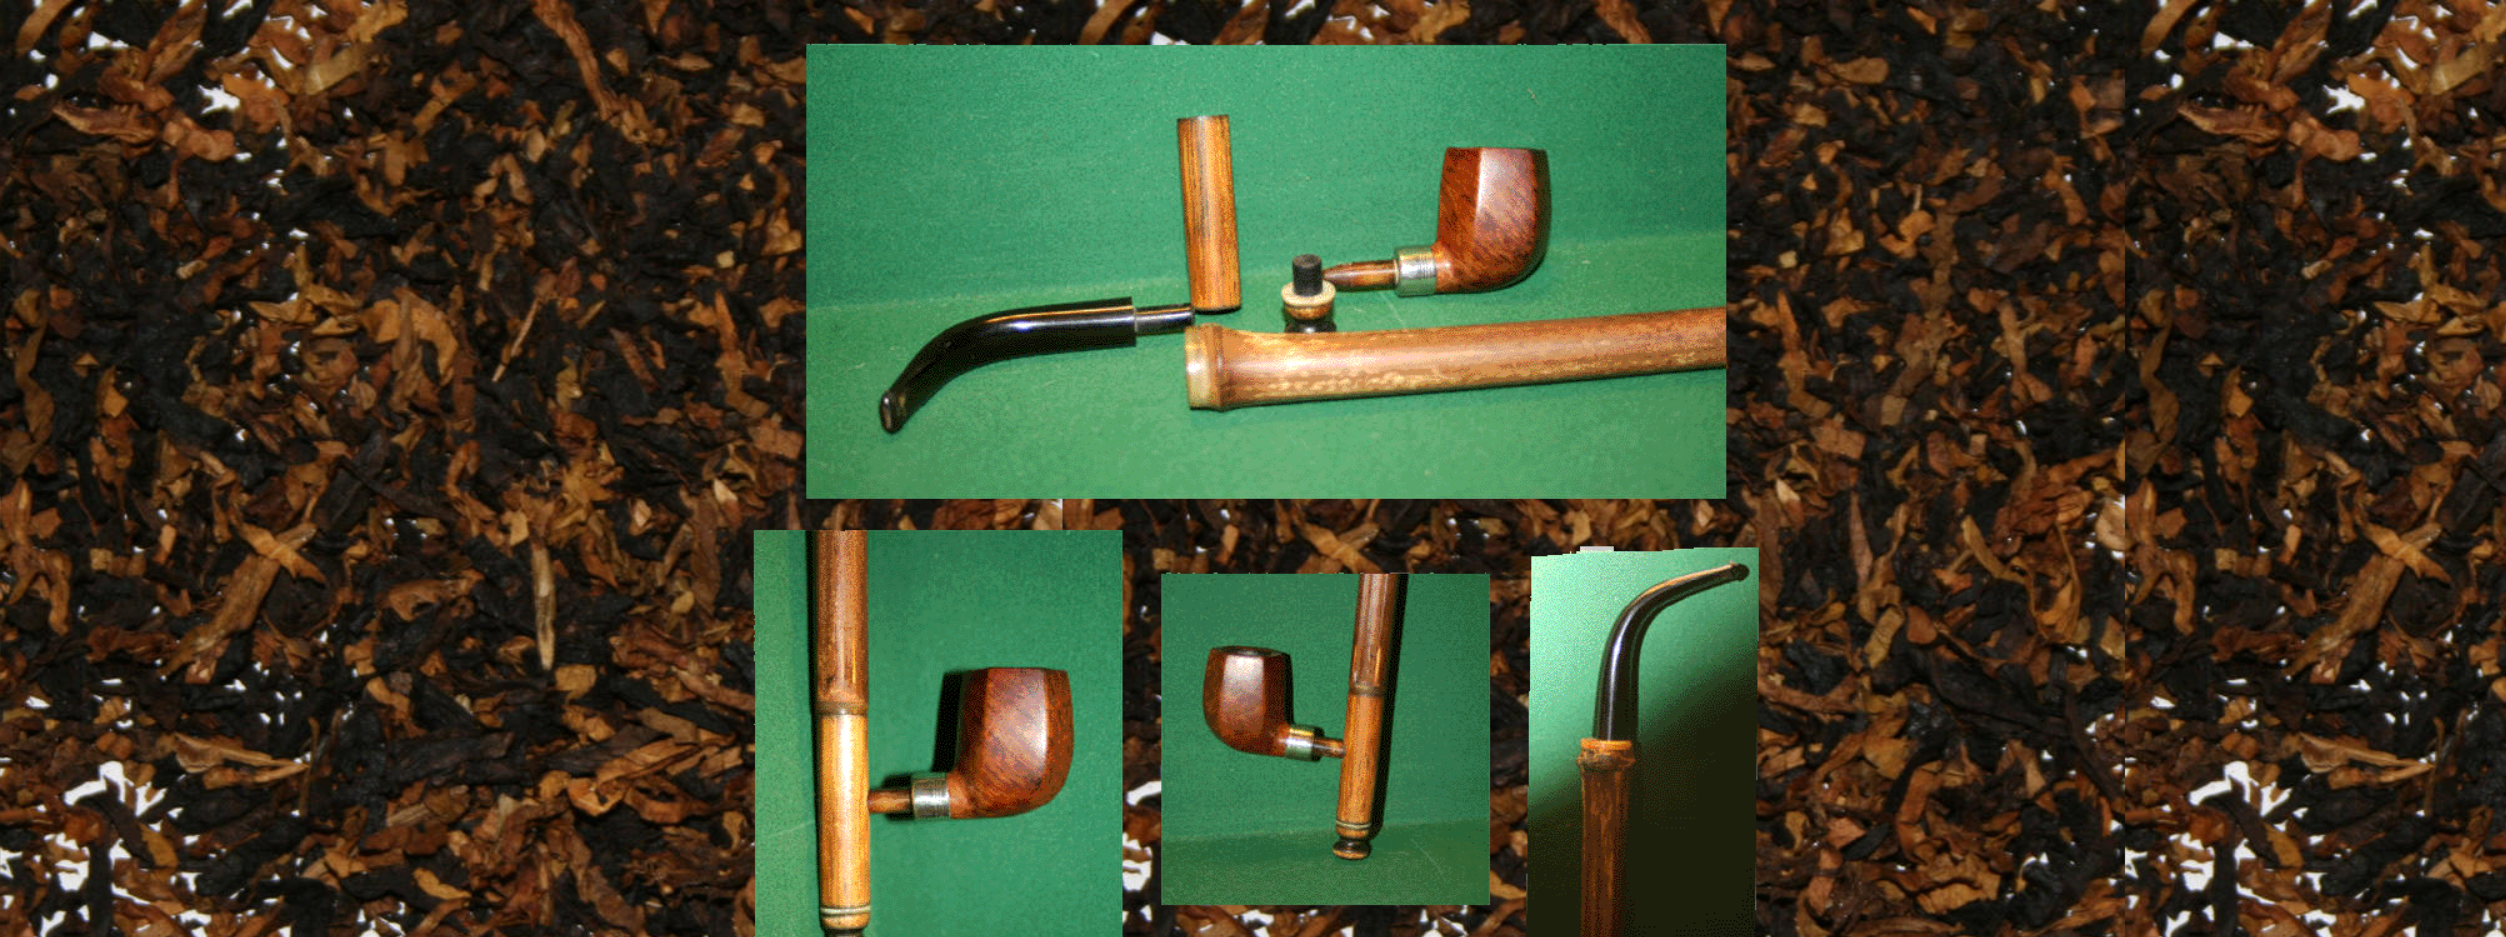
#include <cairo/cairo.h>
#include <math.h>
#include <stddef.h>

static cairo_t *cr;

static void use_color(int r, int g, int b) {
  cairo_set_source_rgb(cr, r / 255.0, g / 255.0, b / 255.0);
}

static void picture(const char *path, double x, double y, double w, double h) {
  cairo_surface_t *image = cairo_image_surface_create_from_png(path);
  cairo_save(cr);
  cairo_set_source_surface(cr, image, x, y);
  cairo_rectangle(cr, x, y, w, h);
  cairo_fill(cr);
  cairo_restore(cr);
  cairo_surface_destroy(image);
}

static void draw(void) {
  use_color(255, 255, 255);
  cairo_paint(cr);
  picture("img_01.png", 0, 0, 2506, 937);
  picture("img_02.png", 753, 43, 1006, 894);
}

int main(void) {
  cairo_surface_t *surface = cairo_image_surface_create(CAIRO_FORMAT_RGB24, 2506, 937);
  cr = cairo_create(surface);
  cairo_font_options_t *options = cairo_font_options_create();
  cairo_font_options_set_hint_metrics(options, CAIRO_HINT_METRICS_OFF);
  cairo_font_options_set_hint_style(options, CAIRO_HINT_STYLE_NONE);
  cairo_set_font_options(cr, options);
  cairo_set_miter_limit(cr, 4);
  draw();
  cairo_surface_write_to_png(surface, "out.png");
  cairo_font_options_destroy(options);
  cairo_destroy(cr);
  cairo_surface_destroy(surface);
  return 0;
}
